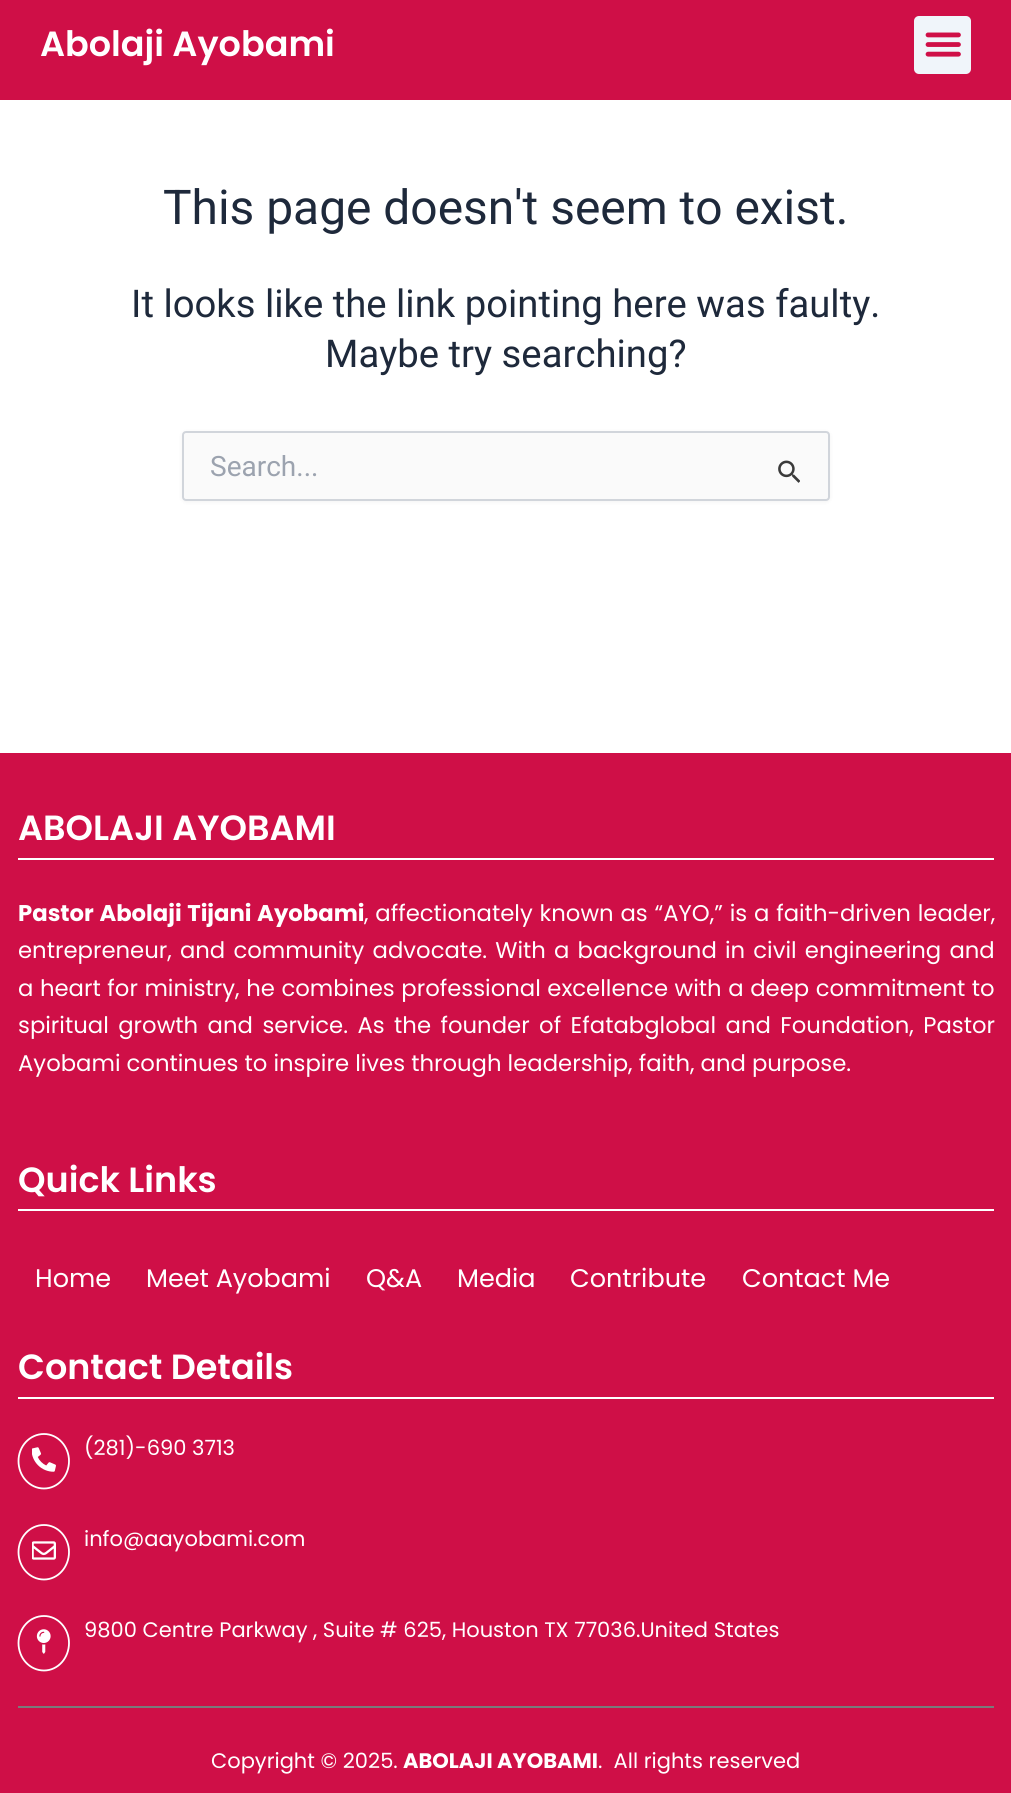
#include <cairo/cairo.h>
#include <math.h>
#include <stddef.h>

static cairo_t *cr;

static void use_color(int r, int g, int b) {
  cairo_set_source_rgb(cr, r / 255.0, g / 255.0, b / 255.0);
}

static void text(double x, double y, const char *s, const char *family, double size, int italic, int bold, int r, int g, int b) {
  cairo_select_font_face(cr, family, italic ? CAIRO_FONT_SLANT_ITALIC : CAIRO_FONT_SLANT_NORMAL,
    bold ? CAIRO_FONT_WEIGHT_BOLD : CAIRO_FONT_WEIGHT_NORMAL);
  cairo_set_font_size(cr, size);
  use_color(r, g, b);
  cairo_move_to(cr, x, y);
  cairo_show_text(cr, s);
}

static void spaced_text(double x, double y, const char *s, double letter, double word) {
  cairo_move_to(cr, x, y);
  while (*s) {
    char ch[5] = {0};
    int n = 0;
    do ch[n++] = *s++; while ((*s & 0xC0) == 0x80);
    cairo_show_text(cr, ch);
    cairo_rel_move_to(cr, letter + word * (*ch == ' '), 0);
  }
}

static void box(double x, double y, double w, double h, int r, int g, int b) {
  use_color(r, g, b);
  cairo_rectangle(cr, x, y, w, h);
  cairo_fill(cr);
}

static void round_rect(double x, double y, double w, double h, double r) {
  cairo_new_sub_path(cr);
  cairo_arc(cr, x + w - r, y + h - r, r, 0, M_PI / 2);
  cairo_arc(cr, x + r, y + h - r, r, M_PI / 2, M_PI);
  cairo_arc(cr, x + r, y + r, r, M_PI, 1.5 * M_PI);
  cairo_arc(cr, x + w - r, y + r, r, 1.5 * M_PI, 2 * M_PI);
  cairo_close_path(cr);
}

static void shadow(double x, double y, double w, double h, double r, double blur, double alpha) {
  cairo_push_group_with_content(cr, CAIRO_CONTENT_ALPHA);
  cairo_set_operator(cr, CAIRO_OPERATOR_SOURCE);
  for (int i = 15; i >= -15 && fmin(w, h) + blur * i / 3 > 0; i -= 2) {
    double e = blur * i / 6;
    cairo_set_source_rgba(cr, 0, 0, 0, alpha * erfc((i - 1) / 8.5) / 2);
    round_rect(x - e, y - e, w + 2 * e, h + 2 * e, fmax(0, fmin(r + e + blur * .6, fmin(w, h) / 2 + e)));
    cairo_fill(cr);
  }
  cairo_pattern_t *soft = cairo_pop_group(cr);
  cairo_mask(cr, soft);
  cairo_pattern_destroy(soft);
}

static void picture(const char *path, double x, double y, double w, double h) {
  cairo_surface_t *image = cairo_image_surface_create_from_png(path);
  cairo_save(cr);
  cairo_set_source_surface(cr, image, x, y);
  cairo_rectangle(cr, x, y, w, h);
  cairo_fill(cr);
  cairo_restore(cr);
  cairo_surface_destroy(image);
}

static void draw(void) {
  use_color(255, 255, 255);
  cairo_paint(cr);
  box(0, 0, 1011, 100, 207, 15, 71);
  use_color(240, 245, 250);
  round_rect(914, 16, 57, 58, 5);
  cairo_fill(cr);
  picture("img_01.png", 925, 32, 36, 25);
  use_color(0, 0, 0);
  shadow(182, 432, 648, 70, 4, 2, 0.05);
  use_color(250, 250, 250);
  round_rect(183, 432, 646, 68, 3);
  cairo_fill_preserve(cr);
  use_color(209, 213, 219);
  cairo_stroke(cr);
  picture("img_02.png", 778, 460, 22, 23);
  box(0, 753, 1011, 1040, 207, 15, 71);
  box(18, 858, 976, 2, 255, 255, 255);
  box(18, 1209, 976, 2, 255, 255, 255);
  box(18, 1397, 976, 2, 255, 255, 255);
  cairo_new_path(cr);
  cairo_move_to(cr, 44, 1434);
  cairo_curve_to(cr, 58, 1434, 69, 1446.5, 69, 1461);
  cairo_curve_to(cr, 69, 1476, 58, 1488.5, 44, 1488.5);
  cairo_curve_to(cr, 29.5, 1488.5, 18.5, 1476, 18.5, 1461);
  cairo_curve_to(cr, 18.5, 1446.5, 29.5, 1434, 44, 1434);
  cairo_close_path(cr);
  cairo_set_line_width(cr, 1.8);
  cairo_stroke(cr);
  picture("img_03.png", 32, 1447, 24, 25);
  cairo_new_path(cr);
  cairo_move_to(cr, 44, 1525);
  cairo_curve_to(cr, 58, 1525, 69, 1537.5, 69, 1552);
  cairo_curve_to(cr, 69, 1567, 58, 1579.5, 44, 1579.5);
  cairo_curve_to(cr, 29.5, 1579.5, 18.5, 1567, 18.5, 1552);
  cairo_curve_to(cr, 18.5, 1537.5, 29.5, 1525, 44, 1525);
  cairo_close_path(cr);
  cairo_stroke(cr);
  picture("img_04.png", 32, 1541, 24, 19);
  cairo_new_path(cr);
  cairo_move_to(cr, 44, 1616);
  cairo_curve_to(cr, 58, 1616, 69, 1628.5, 69, 1643);
  cairo_curve_to(cr, 69, 1658, 58, 1670.5, 44, 1670.5);
  cairo_curve_to(cr, 29.5, 1670.5, 18.5, 1658, 18.5, 1643);
  cairo_curve_to(cr, 18.5, 1628.5, 29.5, 1616, 44, 1616);
  cairo_close_path(cr);
  cairo_stroke(cr);
  picture("img_05.png", 36, 1629, 15, 25);
  box(18, 1706, 976, 2, 122, 122, 122);
  text(40, 56, "Abolaji Ayobami", "Poppins SemiBold", 35, 0, 0, 255, 255, 255);
  text(163, 224, "This page doesn't seem to exist.", "Roboto", 47.9, 0, 0, 30, 41, 59);
  text(131, 317, "It looks like the link pointing here was faulty.", "Roboto", 38.25, 0, 0, 30, 41, 59);
  text(325, 367, "Maybe try searching?", "Roboto", 38.25, 0, 0, 30, 41, 59);
  text(210, 476, "Search...", "Roboto", 28, 0, 0, 156, 163, 175);
  text(18, 840, "ABOLAJI AYOBAMI", "Poppins SemiBold", 35, 0, 0, 255, 255, 255);
  cairo_select_font_face(cr, "Poppins", CAIRO_FONT_SLANT_NORMAL, CAIRO_FONT_WEIGHT_BOLD);
  cairo_set_font_size(cr, 22.75);
  spaced_text(18, 921, "Pastor Abolaji Tijani Ayobami", 0, 0.75);
  cairo_select_font_face(cr, "Poppins", CAIRO_FONT_SLANT_NORMAL, CAIRO_FONT_WEIGHT_NORMAL);
  spaced_text(364, 921, ", affectionately known as “AYO,” is a faith-driven leader,", 0, 0.75);
  spaced_text(18, 958, "entrepreneur, and community advocate. With a background in civil engineering and", 0, 2.1);
  spaced_text(18, 996, "a heart for ministry, he combines professional excellence with a deep commitment to", 0, 0.5);
  spaced_text(18, 1033, "spiritual growth and service. As the founder of Efatabglobal and Foundation, Pastor", 0, 3.4);
  text(18, 1071, "Ayobami continues to inspire lives through leadership, faith, and purpose.", "Poppins", 22.75, 0, 0, 255, 255, 255);
  text(18, 1192, "Quick Links", "Poppins SemiBold", 35, 0, 0, 255, 255, 255);
  text(35, 1287, "Home", "Poppins", 25.5, 0, 0, 255, 255, 255);
  text(146, 1287, "Meet Ayobami", "Poppins", 25.5, 0, 0, 255, 255, 255);
  text(366, 1287, "Q&A", "Poppins", 25.5, 0, 0, 255, 255, 255);
  text(457, 1287, "Media", "Poppins", 25.5, 0, 0, 255, 255, 255);
  text(570, 1287, "Contribute", "Poppins", 25.5, 0, 0, 255, 255, 255);
  text(742, 1287, "Contact Me", "Poppins", 25.5, 0, 0, 255, 255, 255);
  text(18, 1379, "Contact Details", "Poppins SemiBold", 35, 0, 0, 255, 255, 255);
  text(84, 1455, "(281)-690 3713", "Poppins", 21, 0, 0, 255, 255, 255);
  text(84, 1546, "info@aayobami.com", "Poppins", 21, 0, 0, 255, 255, 255);
  text(84, 1637, "9800 Centre Parkway , Suite # 625, Houston TX 77036.United States", "Poppins", 21, 0, 0, 255, 255, 255);
  text(211, 1768, "Copyright © 2025.", "Poppins", 21, 0, 0, 255, 255, 255);
  text(403, 1768, "ABOLAJI AYOBAMI", "Poppins", 21, 0, 1, 255, 255, 255);
  text(598, 1768, ".  All rights reserved", "Poppins", 21, 0, 0, 255, 255, 255);
}

int main(void) {
  cairo_surface_t *surface = cairo_image_surface_create(CAIRO_FORMAT_RGB24, 1011, 1793);
  cr = cairo_create(surface);
  cairo_font_options_t *options = cairo_font_options_create();
  cairo_font_options_set_hint_metrics(options, CAIRO_HINT_METRICS_OFF);
  cairo_font_options_set_hint_style(options, CAIRO_HINT_STYLE_NONE);
  cairo_set_font_options(cr, options);
  cairo_set_miter_limit(cr, 4);
  draw();
  cairo_surface_write_to_png(surface, "out.png");
  cairo_font_options_destroy(options);
  cairo_destroy(cr);
  cairo_surface_destroy(surface);
  return 0;
}
